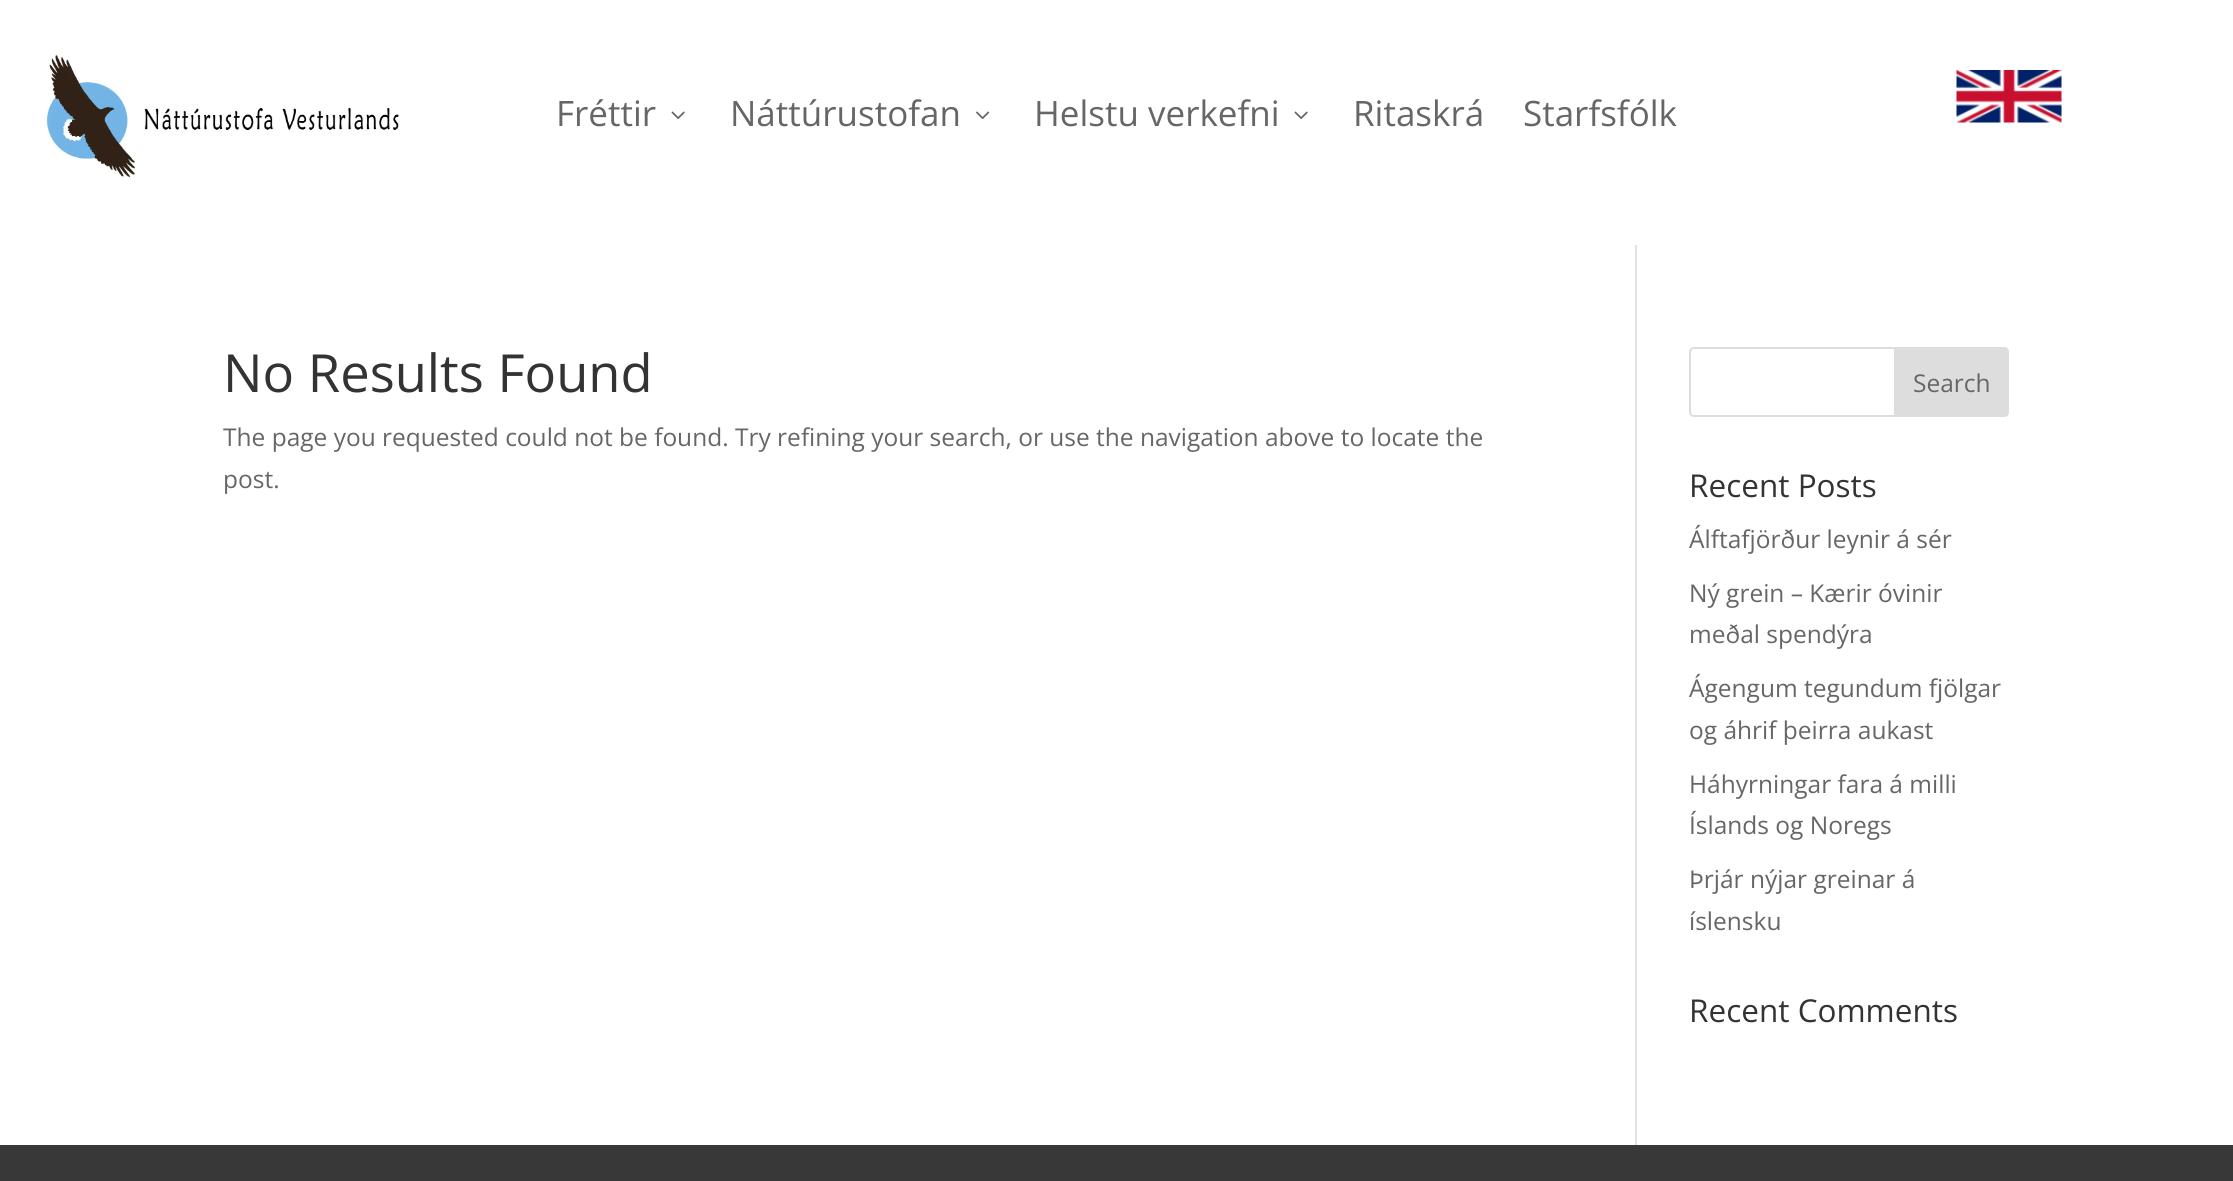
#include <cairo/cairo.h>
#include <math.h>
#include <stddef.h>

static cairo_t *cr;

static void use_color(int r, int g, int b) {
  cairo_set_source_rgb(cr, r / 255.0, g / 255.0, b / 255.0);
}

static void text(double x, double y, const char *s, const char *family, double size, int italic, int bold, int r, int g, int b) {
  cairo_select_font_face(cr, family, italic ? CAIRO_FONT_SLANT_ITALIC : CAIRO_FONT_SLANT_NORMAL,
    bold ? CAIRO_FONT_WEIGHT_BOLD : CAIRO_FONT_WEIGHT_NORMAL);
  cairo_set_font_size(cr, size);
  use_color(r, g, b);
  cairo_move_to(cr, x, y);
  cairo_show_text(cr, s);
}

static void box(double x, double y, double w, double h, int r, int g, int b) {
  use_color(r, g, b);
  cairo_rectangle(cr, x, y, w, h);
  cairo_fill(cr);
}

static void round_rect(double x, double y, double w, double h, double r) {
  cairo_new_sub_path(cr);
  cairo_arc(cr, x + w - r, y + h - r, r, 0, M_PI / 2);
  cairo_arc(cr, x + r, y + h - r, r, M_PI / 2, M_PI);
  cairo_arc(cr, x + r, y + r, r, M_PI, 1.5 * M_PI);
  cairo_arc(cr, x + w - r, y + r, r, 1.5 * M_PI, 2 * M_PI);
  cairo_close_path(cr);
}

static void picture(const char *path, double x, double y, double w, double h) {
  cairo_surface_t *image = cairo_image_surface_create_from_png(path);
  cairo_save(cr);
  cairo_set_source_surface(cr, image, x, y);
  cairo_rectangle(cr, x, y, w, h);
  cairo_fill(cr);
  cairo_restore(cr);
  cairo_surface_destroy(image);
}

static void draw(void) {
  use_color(255, 255, 255);
  cairo_paint(cr);
  picture("img_01.png", 46, 54, 353, 124);
  picture("img_02.png", 671, 111, 14, 8);
  picture("img_03.png", 976, 111, 14, 8);
  picture("img_02.png", 1294, 111, 14, 8);
  picture("img_04.png", 1956, 70, 106, 53);
  box(1635, 245, 2, 900, 226, 226, 226);
  round_rect(1690, 348, 318, 68, 4);
  use_color(221, 221, 221);
  cairo_stroke(cr);
  cairo_new_path(cr);
  cairo_move_to(cr, 1895, 348);
  cairo_line_to(cr, 2004, 348);
  cairo_curve_to(cr, 2006, 348, 2008, 350, 2008, 352);
  cairo_line_to(cr, 2008, 412);
  cairo_curve_to(cr, 2008, 414, 2006, 416, 2004, 416);
  cairo_line_to(cr, 1895, 416);
  cairo_close_path(cr);
  cairo_fill_preserve(cr);
  cairo_stroke(cr);
  box(0, 1145, 2233, 36, 56, 56, 56);
  text(556, 126, "Fréttir", "Open Sans", 35, 0, 0, 102, 102, 102);
  text(730, 126, "Náttúrustofan", "Open Sans", 35, 0, 0, 102, 102, 102);
  text(1034, 126, "Helstu verkefni", "Open Sans", 35, 0, 0, 102, 102, 102);
  text(1353, 126, "Ritaskrá", "Open Sans", 35, 0, 0, 102, 102, 102);
  text(1523, 126, "Starfsfólk", "Open Sans", 35, 0, 0, 102, 102, 102);
  text(223, 392, "No Results Found", "Open Sans", 52.5, 0, 0, 51, 51, 51);
  text(223, 446, "The page you requested could not be found. Try refining your search, or use the navigation above to locate the", "Open Sans", 24.5, 0, 0, 102, 102, 102);
  text(223, 488, "post.", "Open Sans", 24.5, 0, 0, 102, 102, 102);
  text(1913, 392, "Search", "Open Sans", 24.5, 0, 0, 102, 102, 102);
  text(1689, 497, "Recent Posts", "Open Sans", 31.5, 0, 0, 51, 51, 51);
  text(1689, 548, "Álftafjörður leynir á sér", "Open Sans", 24.5, 0, 0, 102, 102, 102);
  text(1689, 602, "Ný grein – Kærir óvinir", "Open Sans", 24.5, 0, 0, 102, 102, 102);
  text(1689, 643, "meðal spendýra", "Open Sans", 24.5, 0, 0, 102, 102, 102);
  text(1689, 697, "Ágengum tegundum fjölgar", "Open Sans", 24.5, 0, 0, 102, 102, 102);
  text(1689, 739, "og áhrif þeirra aukast", "Open Sans", 24.5, 0, 0, 102, 102, 102);
  text(1689, 793, "Háhyrningar fara á milli", "Open Sans", 24.5, 0, 0, 102, 102, 102);
  text(1689, 834, "Íslands og Noregs", "Open Sans", 24.5, 0, 0, 102, 102, 102);
  text(1689, 888, "Þrjár nýjar greinar á", "Open Sans", 24.5, 0, 0, 102, 102, 102);
  text(1689, 930, "íslensku", "Open Sans", 24.5, 0, 0, 102, 102, 102);
  text(1689, 1022, "Recent Comments", "Open Sans", 31.5, 0, 0, 51, 51, 51);
}

int main(void) {
  cairo_surface_t *surface = cairo_image_surface_create(CAIRO_FORMAT_RGB24, 2233, 1181);
  cr = cairo_create(surface);
  cairo_font_options_t *options = cairo_font_options_create();
  cairo_font_options_set_hint_metrics(options, CAIRO_HINT_METRICS_OFF);
  cairo_font_options_set_hint_style(options, CAIRO_HINT_STYLE_NONE);
  cairo_set_font_options(cr, options);
  cairo_set_miter_limit(cr, 4);
  draw();
  cairo_surface_write_to_png(surface, "out.png");
  cairo_font_options_destroy(options);
  cairo_destroy(cr);
  cairo_surface_destroy(surface);
  return 0;
}
